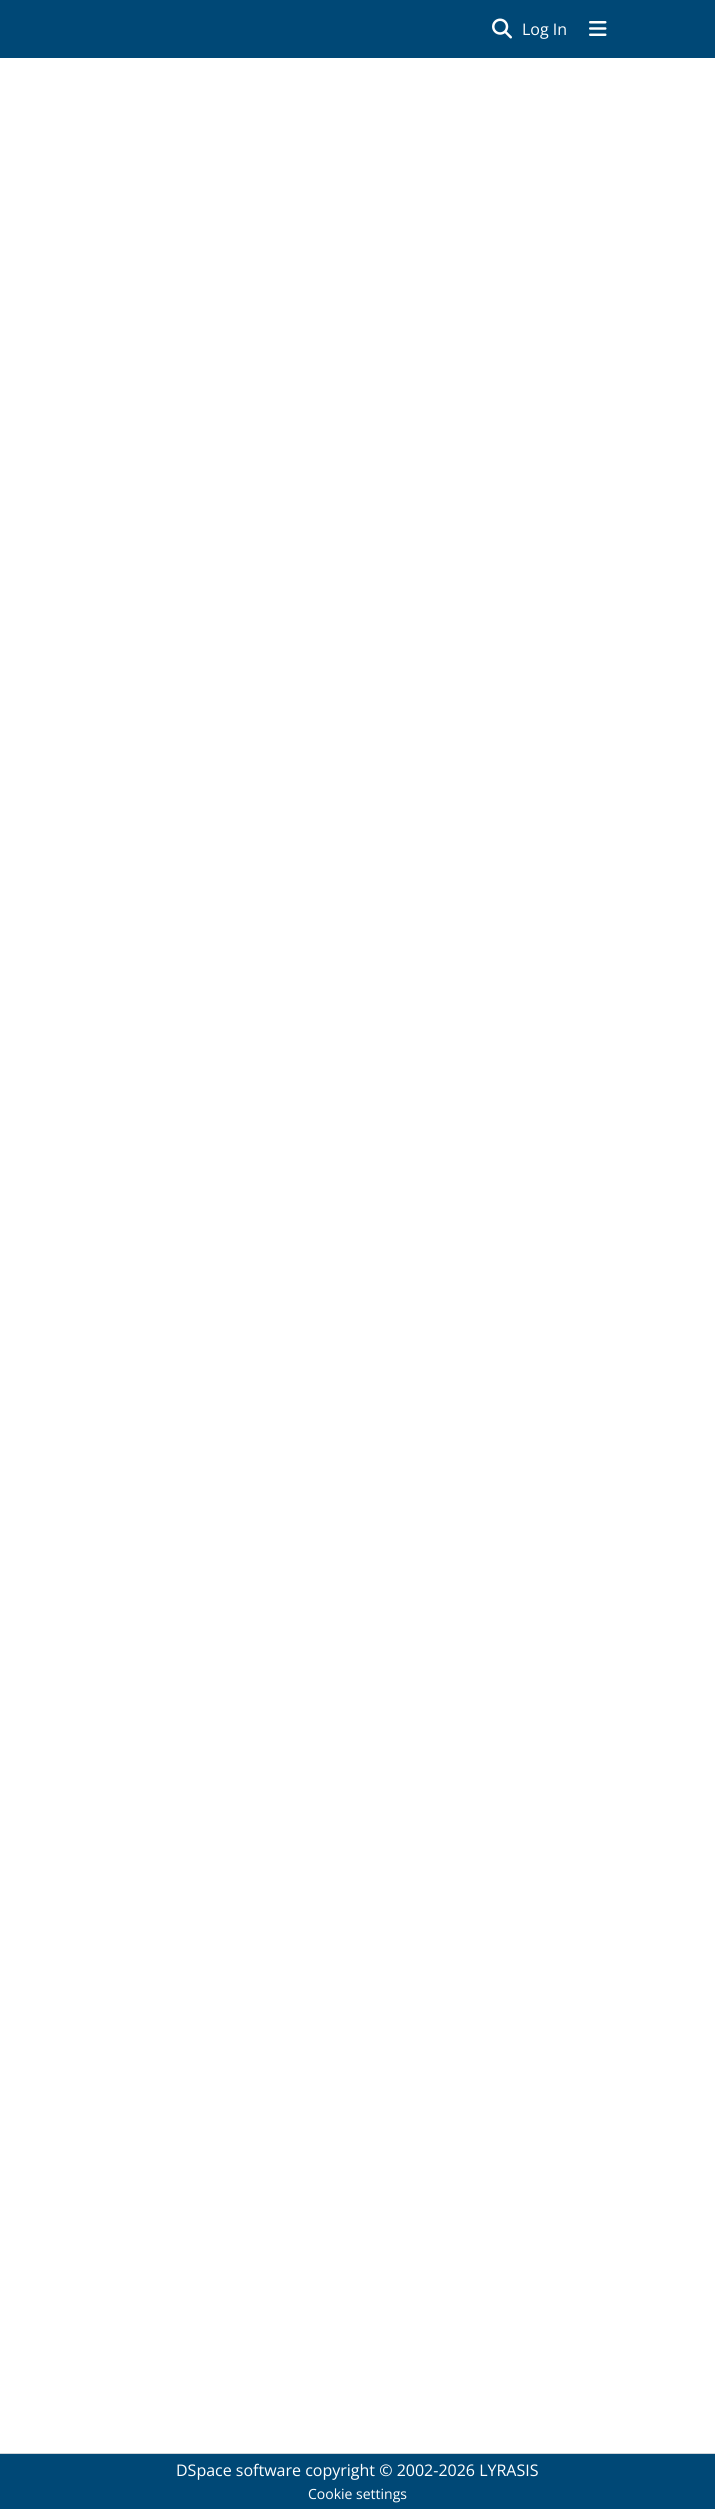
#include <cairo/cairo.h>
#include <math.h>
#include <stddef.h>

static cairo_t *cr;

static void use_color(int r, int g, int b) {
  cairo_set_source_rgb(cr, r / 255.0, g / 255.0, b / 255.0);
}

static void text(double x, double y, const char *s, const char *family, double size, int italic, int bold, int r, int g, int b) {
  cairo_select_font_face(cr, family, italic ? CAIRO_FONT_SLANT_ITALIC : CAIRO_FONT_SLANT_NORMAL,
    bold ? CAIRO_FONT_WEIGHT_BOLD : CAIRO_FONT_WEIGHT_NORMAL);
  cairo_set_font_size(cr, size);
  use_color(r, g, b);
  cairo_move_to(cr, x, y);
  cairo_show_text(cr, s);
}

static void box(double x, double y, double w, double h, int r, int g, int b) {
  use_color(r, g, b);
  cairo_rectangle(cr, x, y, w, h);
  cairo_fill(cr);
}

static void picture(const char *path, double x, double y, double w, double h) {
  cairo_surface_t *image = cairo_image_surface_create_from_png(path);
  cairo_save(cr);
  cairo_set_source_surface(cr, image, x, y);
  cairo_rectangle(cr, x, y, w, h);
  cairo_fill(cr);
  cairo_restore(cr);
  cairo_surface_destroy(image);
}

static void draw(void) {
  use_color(255, 255, 255);
  cairo_paint(cr);
  box(0, 0, 715, 58, 0, 72, 118);
  picture("img_01.png", 492, 18, 20, 21);
  picture("img_02.png", 589, 21, 18, 15);
  box(0, 2454, 715, 55, 0, 72, 118);
  box(0, 2453, 715, 1, 206, 212, 218);
  text(522, 35, "Log In", "Open Sans", 16, 0, 0, 255, 255, 255);
  text(176, 2476, "DSpace software copyright © 2002-2026 LYRASIS", "Open Sans", 16, 0, 0, 255, 255, 255);
  text(308, 2499, "Cookie settings", "Open Sans", 14, 0, 0, 255, 255, 255);
}

int main(void) {
  cairo_surface_t *surface = cairo_image_surface_create(CAIRO_FORMAT_RGB24, 715, 2509);
  cr = cairo_create(surface);
  cairo_font_options_t *options = cairo_font_options_create();
  cairo_font_options_set_hint_metrics(options, CAIRO_HINT_METRICS_OFF);
  cairo_font_options_set_hint_style(options, CAIRO_HINT_STYLE_NONE);
  cairo_set_font_options(cr, options);
  cairo_set_miter_limit(cr, 4);
  draw();
  cairo_surface_write_to_png(surface, "out.png");
  cairo_font_options_destroy(options);
  cairo_destroy(cr);
  cairo_surface_destroy(surface);
  return 0;
}
